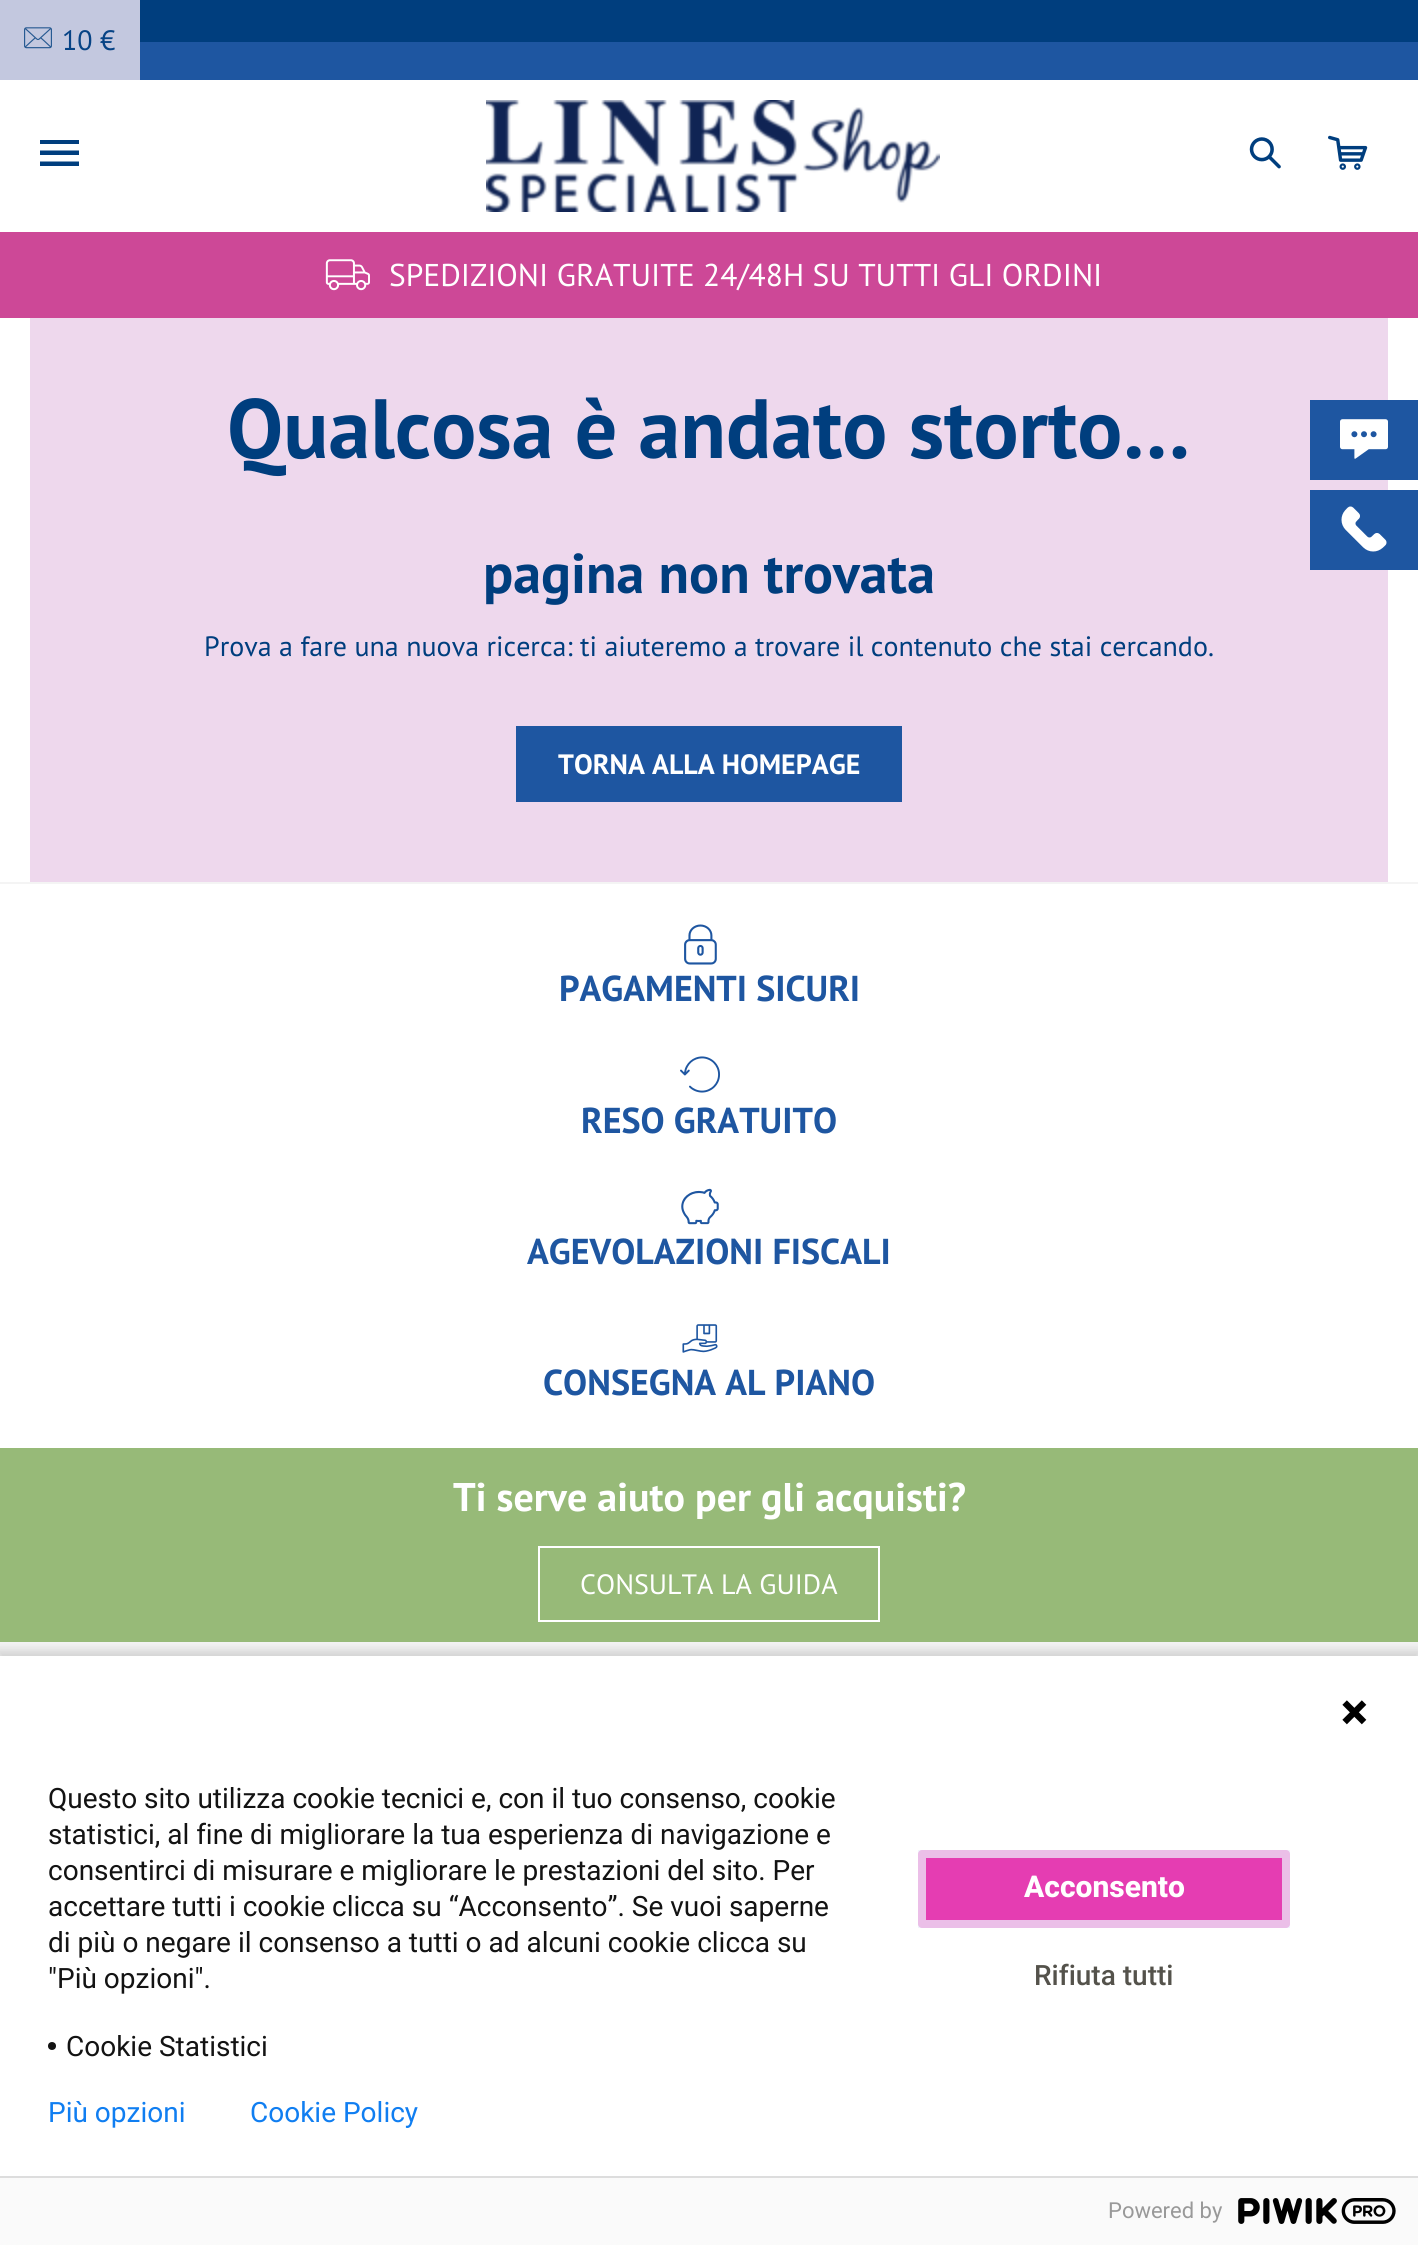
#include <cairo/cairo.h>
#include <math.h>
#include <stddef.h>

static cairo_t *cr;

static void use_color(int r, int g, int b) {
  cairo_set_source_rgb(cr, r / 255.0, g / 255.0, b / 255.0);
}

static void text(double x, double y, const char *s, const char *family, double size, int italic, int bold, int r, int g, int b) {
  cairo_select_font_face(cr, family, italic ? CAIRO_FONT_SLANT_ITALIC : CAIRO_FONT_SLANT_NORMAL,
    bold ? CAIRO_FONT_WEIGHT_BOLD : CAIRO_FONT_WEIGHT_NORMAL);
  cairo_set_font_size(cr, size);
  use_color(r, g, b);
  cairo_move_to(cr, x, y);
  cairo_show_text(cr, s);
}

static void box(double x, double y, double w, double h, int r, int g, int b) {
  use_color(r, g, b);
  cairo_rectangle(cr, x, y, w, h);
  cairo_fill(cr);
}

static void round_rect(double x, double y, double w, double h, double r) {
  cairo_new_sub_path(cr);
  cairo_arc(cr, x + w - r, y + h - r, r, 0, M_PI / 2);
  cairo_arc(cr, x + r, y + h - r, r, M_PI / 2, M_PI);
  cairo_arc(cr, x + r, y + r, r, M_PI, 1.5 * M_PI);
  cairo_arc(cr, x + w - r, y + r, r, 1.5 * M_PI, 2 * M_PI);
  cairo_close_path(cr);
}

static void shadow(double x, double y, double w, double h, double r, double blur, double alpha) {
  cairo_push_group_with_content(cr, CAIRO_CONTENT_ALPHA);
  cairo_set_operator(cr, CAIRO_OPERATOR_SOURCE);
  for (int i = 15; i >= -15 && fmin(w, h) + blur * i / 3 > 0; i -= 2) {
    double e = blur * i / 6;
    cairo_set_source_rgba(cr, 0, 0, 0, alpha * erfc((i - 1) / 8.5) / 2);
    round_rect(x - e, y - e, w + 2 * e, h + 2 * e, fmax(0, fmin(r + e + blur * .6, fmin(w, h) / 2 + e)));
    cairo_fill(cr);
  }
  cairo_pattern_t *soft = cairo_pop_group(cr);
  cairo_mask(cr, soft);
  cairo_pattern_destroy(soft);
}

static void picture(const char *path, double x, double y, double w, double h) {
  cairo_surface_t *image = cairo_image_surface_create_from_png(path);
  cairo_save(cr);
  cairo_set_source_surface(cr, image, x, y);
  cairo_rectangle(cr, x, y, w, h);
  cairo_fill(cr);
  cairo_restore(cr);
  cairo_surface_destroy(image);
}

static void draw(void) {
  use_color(255, 255, 255);
  cairo_paint(cr);
  box(140, 42, 1278, 38, 30, 86, 161);
  box(0, 0, 140, 80, 195, 200, 223);
  picture("img_01.png", 24, 27, 28, 22);
  box(140, 0, 1278, 42, 0, 62, 126);
  cairo_new_path(cr);
  cairo_move_to(cr, 40, 161.5);
  cairo_line_to(cr, 79, 161.5);
  cairo_line_to(cr, 79, 166);
  cairo_line_to(cr, 40, 166);
  cairo_close_path(cr);
  cairo_move_to(cr, 40, 150.5);
  cairo_line_to(cr, 79, 150.5);
  cairo_line_to(cr, 79, 155);
  cairo_line_to(cr, 40, 155);
  cairo_close_path(cr);
  cairo_move_to(cr, 40, 140);
  cairo_line_to(cr, 79, 140);
  cairo_line_to(cr, 79, 144);
  cairo_line_to(cr, 40, 144);
  cairo_close_path(cr);
  cairo_fill(cr);
  picture("img_02.png", 486, 100, 454, 112);
  picture("img_03.png", 1249, 137, 32, 32);
  picture("img_04.png", 1328, 135, 40, 35);
  box(0, 232, 1418, 86, 205, 72, 151);
  picture("img_05.png", 325, 259, 45, 32);
  box(30, 318, 1358, 564, 238, 216, 237);
  box(516, 726, 386, 76, 30, 86, 161);
  box(1310, 400, 108, 80, 30, 86, 161);
  picture("img_06.png", 1340, 419, 48, 40);
  box(1310, 490, 108, 80, 30, 86, 161);
  picture("img_07.png", 1341, 506, 46, 46);
  box(0, 882, 1418, 2, 244, 244, 244);
  picture("img_08.png", 684, 924, 33, 41);
  picture("img_09.png", 680, 1056, 40, 37);
  picture("img_10.png", 681, 1188, 38, 37);
  picture("img_11.png", 682, 1324, 36, 29);
  box(0, 1448, 1418, 194, 151, 186, 120);
  cairo_rectangle(cr, 539, 1547, 340, 74);
  use_color(255, 255, 255);
  cairo_stroke(cr);
  box(0, 1642, 1418, 14, 244, 244, 244);
  use_color(0, 0, 0);
  shadow(-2, 1650, 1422, 594, 0, 5, 0.14);
  box(0, 1656, 1418, 520, 255, 255, 255);
  picture("img_12.png", 1342, 1700, 25, 25);
  use_color(19, 19, 19);
  cairo_arc(cr, 52, 2046, 4, 0, 2 * M_PI);
  cairo_fill(cr);
  use_color(229, 61, 178);
  round_rect(918, 1850, 372, 78, 4);
  cairo_fill(cr);
  cairo_rectangle(cr, 922, 1854, 364, 70);
  cairo_set_source_rgba(cr, 0.933, 0.949, 0.988, 0.72);
  cairo_set_line_width(cr, 8);
  cairo_stroke(cr);
  box(0, 2178, 1418, 67, 250, 250, 250);
  box(0, 2176, 1418, 2, 221, 221, 221);
  picture("img_13.png", 1238, 2198, 158, 26);
  text(62, 50, "10 €", "PT Sans", 28, 0, 0, 6, 67, 133);
  text(389, 286, "SPEDIZIONI GRATUITE 24/48H SU TUTTI GLI ORDINI", "PT Sans", 31.5, 0, 0, 255, 255, 255);
  text(227, 458, "Qualcosa è andato storto…", "PT Sans", 84, 0, 1, 0, 62, 126);
  text(483, 593, "pagina non trovata", "PT Sans", 56, 0, 1, 0, 62, 126);
  text(204, 656, "Prova a fare una nuova ricerca: ti aiuteremo a trovare il contenuto che stai cercando.", "PT Sans", 28, 0, 0, 0, 62, 126);
  text(558, 774, "TORNA ALLA HOMEPAGE", "PT Sans", 28, 0, 1, 255, 255, 255);
  text(559, 1001, "PAGAMENTI SICURI", "PT Sans", 36, 0, 1, 30, 86, 161);
  text(581, 1133, "RESO GRATUITO", "PT Sans", 36, 0, 1, 30, 86, 161);
  text(527, 1264, "AGEVOLAZIONI FISCALI", "PT Sans", 36, 0, 1, 30, 86, 161);
  text(543, 1395, "CONSEGNA AL PIANO", "PT Sans", 36, 0, 1, 30, 86, 161);
  text(453, 1511, "Ti serve aiuto per gli acquisti?", "PT Sans", 40, 0, 1, 255, 255, 255);
  text(580, 1594, "CONSULTA LA GUIDA", "PT Sans", 28, 0, 0, 255, 255, 255);
  text(48, 1808, "Questo sito utilizza cookie tecnici e, con il tuo consenso, cookie", "Roboto", 28, 0, 0, 19, 19, 19);
  text(48, 1844, "statistici, al fine di migliorare la tua esperienza di navigazione e", "Roboto", 28, 0, 0, 19, 19, 19);
  text(48, 1880, "consentirci di misurare e migliorare le prestazioni del sito. Per", "Roboto", 28, 0, 0, 19, 19, 19);
  text(48, 1916, "accettare tutti i cookie clicca su “Acconsento”. Se vuoi saperne", "Roboto", 28, 0, 0, 19, 19, 19);
  text(48, 1952, "di più o negare il consenso a tutti o ad alcuni cookie clicca su", "Roboto", 28, 0, 0, 19, 19, 19);
  text(48, 1988, "\"Più opzioni\".", "Roboto", 28, 0, 0, 19, 19, 19);
  text(66, 2056, "Cookie Statistici", "Roboto", 28, 0, 0, 19, 19, 19);
  text(1024, 1897, "Acconsento", "Roboto ExtraBold", 30, 0, 0, 255, 255, 255);
  text(1034, 1985, "Rifiuta tutti", "Roboto Medium", 28, 0, 0, 84, 82, 75);
  text(48, 2122, "Più opzioni", "Roboto", 28, 0, 0, 16, 126, 241);
  text(250, 2122, "Cookie Policy", "Roboto", 28, 0, 0, 16, 126, 241);
  text(1108, 2218, "Powered by", "Roboto", 22, 0, 0, 153, 153, 153);
}

int main(void) {
  cairo_surface_t *surface = cairo_image_surface_create(CAIRO_FORMAT_RGB24, 1418, 2245);
  cr = cairo_create(surface);
  cairo_font_options_t *options = cairo_font_options_create();
  cairo_font_options_set_hint_metrics(options, CAIRO_HINT_METRICS_OFF);
  cairo_font_options_set_hint_style(options, CAIRO_HINT_STYLE_NONE);
  cairo_set_font_options(cr, options);
  cairo_set_miter_limit(cr, 4);
  draw();
  cairo_surface_write_to_png(surface, "out.png");
  cairo_font_options_destroy(options);
  cairo_destroy(cr);
  cairo_surface_destroy(surface);
  return 0;
}
